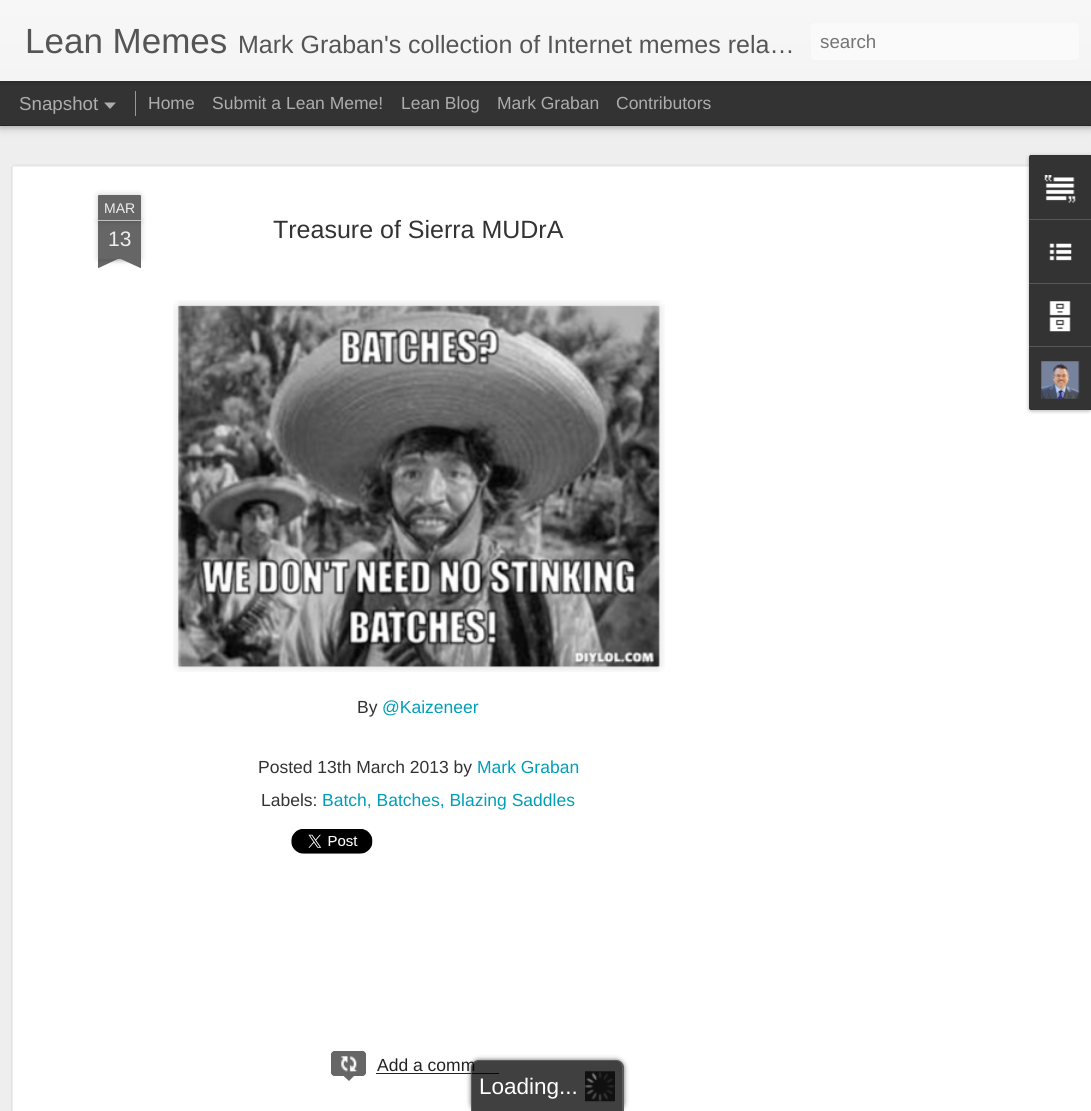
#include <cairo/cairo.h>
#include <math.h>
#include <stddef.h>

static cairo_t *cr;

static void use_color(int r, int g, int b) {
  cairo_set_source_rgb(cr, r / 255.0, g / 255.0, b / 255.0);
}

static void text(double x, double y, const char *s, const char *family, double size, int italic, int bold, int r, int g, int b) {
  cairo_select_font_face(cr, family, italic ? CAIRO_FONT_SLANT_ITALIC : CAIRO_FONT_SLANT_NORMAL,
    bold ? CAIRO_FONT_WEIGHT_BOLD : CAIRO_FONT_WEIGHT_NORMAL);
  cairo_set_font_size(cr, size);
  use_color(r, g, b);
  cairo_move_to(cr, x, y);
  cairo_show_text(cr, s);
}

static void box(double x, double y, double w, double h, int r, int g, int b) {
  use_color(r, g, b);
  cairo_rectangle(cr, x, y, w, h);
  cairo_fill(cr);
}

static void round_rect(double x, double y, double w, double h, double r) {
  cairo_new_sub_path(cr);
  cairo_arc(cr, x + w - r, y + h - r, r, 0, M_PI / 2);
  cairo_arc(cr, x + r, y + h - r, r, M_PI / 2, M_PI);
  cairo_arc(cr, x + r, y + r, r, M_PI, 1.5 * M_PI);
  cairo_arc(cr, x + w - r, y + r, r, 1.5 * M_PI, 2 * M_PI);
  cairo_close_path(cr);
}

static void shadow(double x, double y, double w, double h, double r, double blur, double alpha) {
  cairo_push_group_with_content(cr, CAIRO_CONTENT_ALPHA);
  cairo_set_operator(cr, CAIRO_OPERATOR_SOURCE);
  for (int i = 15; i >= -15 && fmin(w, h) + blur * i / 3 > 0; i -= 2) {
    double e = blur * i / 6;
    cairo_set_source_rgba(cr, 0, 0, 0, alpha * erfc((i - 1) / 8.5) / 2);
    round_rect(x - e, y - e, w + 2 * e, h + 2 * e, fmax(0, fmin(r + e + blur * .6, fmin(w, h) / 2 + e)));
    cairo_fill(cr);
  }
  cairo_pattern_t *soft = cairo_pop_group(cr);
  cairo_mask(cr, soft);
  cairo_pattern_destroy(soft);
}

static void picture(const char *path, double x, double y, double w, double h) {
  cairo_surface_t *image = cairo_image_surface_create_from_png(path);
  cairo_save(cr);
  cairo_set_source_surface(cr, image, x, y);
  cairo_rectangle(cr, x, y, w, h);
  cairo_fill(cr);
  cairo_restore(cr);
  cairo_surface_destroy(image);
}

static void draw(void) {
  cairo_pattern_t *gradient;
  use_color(51, 51, 51);
  cairo_paint(cr);
  box(0, 126, 1091, 985, 238, 238, 238);
  use_color(0, 0, 0);
  shadow(0, 81, 1091, 44, 0, 5, 0.5);
  box(0, 81, 1091, 44, 51, 51, 51);
  use_color(0, 0, 0);
  shadow(0, 0, 1091, 81, 0, 3, 0.3);
  gradient = cairo_pattern_create_linear(0, 0, 0, 81);
  cairo_pattern_add_color_stop_rgba(gradient, 0, 0.969, 0.969, 0.969, 1);
  cairo_pattern_add_color_stop_rgba(gradient, 1, 0.957, 0.957, 0.957, 1);
  cairo_set_source(cr, gradient);
  cairo_pattern_destroy(gradient);
  cairo_rectangle(cr, 0, 0, 1091, 81);
  cairo_fill(cr);
  use_color(250, 250, 250);
  round_rect(811, 23, 268, 37, 4);
  cairo_fill(cr);
  use_color(173, 173, 173);
  cairo_new_path(cr);
  cairo_move_to(cr, 104, 102.5);
  cairo_line_to(cr, 116, 102.5);
  cairo_line_to(cr, 110, 109);
  cairo_close_path(cr);
  cairo_fill(cr);
  box(135, 91, 1, 25, 153, 153, 153);
  box(10, 164, 1081, 947, 255, 255, 255);
  picture("img_01.png", 10, 164, 1019, 947);
  use_color(0, 0, 0);
  shadow(98, 221, 43, 38, 0, 3, 0.2);
  box(98, 221, 43, 38, 102, 102, 102);
  use_color(0, 0, 0);
  shadow(98, 195, 43, 26, 1, 3, 0.2);
  use_color(102, 102, 102);
  cairo_new_path(cr);
  cairo_move_to(cr, 99, 195);
  cairo_line_to(cr, 140, 195);
  cairo_curve_to(cr, 140.5, 195, 141, 195.5, 141, 196);
  cairo_line_to(cr, 141, 221);
  cairo_line_to(cr, 98, 221);
  cairo_line_to(cr, 98, 196);
  cairo_curve_to(cr, 98, 195.5, 98.5, 195, 99, 195);
  cairo_close_path(cr);
  cairo_fill(cr);
  box(98, 220, 43, 1, 194, 194, 194);
  cairo_save(cr);
  cairo_rectangle(cr, 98, 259, 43, 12);
  cairo_clip(cr);
  use_color(0, 0, 0);
  shadow(86, 246, 63, 13, 0, 3, 0.2);
  cairo_restore(cr);
  cairo_save(cr);
  cairo_rectangle(cr, 98, 259, 43, 12);
  cairo_clip(cr);
  use_color(102, 102, 102);
  cairo_new_path(cr);
  cairo_move_to(cr, 87, 260);
  cairo_line_to(cr, 143, 234);
  cairo_line_to(cr, 148, 245);
  cairo_line_to(cr, 92, 271);
  cairo_close_path(cr);
  cairo_fill(cr);
  cairo_restore(cr);
  cairo_save(cr);
  cairo_rectangle(cr, 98, 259, 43, 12);
  cairo_clip(cr);
  use_color(0, 0, 0);
  shadow(90, 246, 63, 13, 0, 3, 0.2);
  cairo_restore(cr);
  cairo_save(cr);
  cairo_rectangle(cr, 98, 259, 43, 12);
  cairo_clip(cr);
  use_color(102, 102, 102);
  cairo_new_path(cr);
  cairo_move_to(cr, 96, 234);
  cairo_line_to(cr, 152, 260);
  cairo_line_to(cr, 147, 271);
  cairo_line_to(cr, 90, 245);
  cairo_close_path(cr);
  cairo_fill(cr);
  cairo_restore(cr);
  picture("img_02.png", 173, 300, 492, 372);
  picture("img_03.png", 178, 305, 482, 363);
  picture("img_04.png", 291, 829, 82, 25);
  use_color(102, 102, 102);
  round_rect(331, 1051, 35, 25, 4);
  cairo_fill(cr);
  picture("img_05.png", 341, 1056, 16, 16);
  round_rect(331.5, 1051.5, 34, 24, 3.5);
  cairo_set_line_width(cr, 1);
  cairo_stroke(cr);
  cairo_new_path(cr);
  cairo_move_to(cr, 342.5, 1075);
  cairo_line_to(cr, 355, 1075);
  cairo_line_to(cr, 349, 1081);
  cairo_close_path(cr);
  cairo_fill(cr);
  box(376, 1073, 123, 1, 34, 34, 34);
  use_color(0, 0, 0);
  shadow(1029, 156, 62, 255, 2.5, 2, 0.3);
  use_color(51, 51, 51);
  cairo_new_path(cr);
  cairo_move_to(cr, 1031.5, 155);
  cairo_line_to(cr, 1091, 155);
  cairo_line_to(cr, 1091, 410);
  cairo_line_to(cr, 1031.5, 410);
  cairo_curve_to(cr, 1030, 410, 1029, 409, 1029, 407.5);
  cairo_line_to(cr, 1029, 157.5);
  cairo_curve_to(cr, 1029, 156, 1030, 155, 1031.5, 155);
  cairo_close_path(cr);
  cairo_fill(cr);
  cairo_new_path(cr);
  cairo_move_to(cr, 1031.5, 155);
  cairo_line_to(cr, 1091, 155);
  cairo_line_to(cr, 1091, 219);
  cairo_line_to(cr, 1029, 219);
  cairo_line_to(cr, 1029, 157.5);
  cairo_curve_to(cr, 1029, 156, 1030, 155, 1031.5, 155);
  cairo_close_path(cr);
  cairo_fill(cr);
  picture("img_06.png", 1044, 175, 32, 28);
  box(1029, 219, 62, 1, 88, 88, 88);
  picture("img_07.png", 1049, 243, 23, 18);
  box(1029, 283, 62, 1, 88, 88, 88);
  picture("img_08.png", 1049, 301, 22, 31);
  use_color(51, 51, 51);
  cairo_new_path(cr);
  cairo_move_to(cr, 1029, 346);
  cairo_line_to(cr, 1091, 346);
  cairo_line_to(cr, 1091, 410);
  cairo_line_to(cr, 1031.5, 410);
  cairo_curve_to(cr, 1030, 410, 1029, 409, 1029, 407.5);
  cairo_close_path(cr);
  cairo_fill(cr);
  box(1029, 346, 62, 1, 88, 88, 88);
  picture("img_09.png", 1041, 361, 39, 38);
  cairo_save(cr);
  cairo_set_fill_rule(cr, CAIRO_FILL_RULE_EVEN_ODD);
  cairo_new_path(cr);
  cairo_move_to(cr, 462, 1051);
  cairo_line_to(cr, 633, 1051);
  cairo_line_to(cr, 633, 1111);
  cairo_line_to(cr, 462, 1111);
  cairo_close_path(cr);
  cairo_move_to(cr, 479, 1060);
  cairo_line_to(cr, 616, 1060);
  cairo_curve_to(cr, 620.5, 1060, 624, 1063.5, 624, 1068);
  cairo_line_to(cr, 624, 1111);
  cairo_line_to(cr, 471, 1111);
  cairo_line_to(cr, 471, 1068);
  cairo_curve_to(cr, 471, 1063.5, 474.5, 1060, 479, 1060);
  cairo_close_path(cr);
  cairo_clip(cr);
  use_color(51, 51, 51);
  shadow(471, 1060, 153, 51, 8, 2.5, 0.75);
  cairo_restore(cr);
  text(25, 53, "Lean Memes", "Liberation Sans", 35, 0, 0, 85, 85, 85);
  text(238, 53, "Mark Graban's collection of Internet memes rela…", "Liberation Sans", 25, 0, 0, 85, 85, 85);
  text(820, 48, "search", "Liberation Sans", 18.75, 0, 0, 117, 117, 117);
  text(19, 110, "Snapshot", "Liberation Sans", 18.75, 0, 0, 173, 173, 173);
  text(148, 109, "Home", "Liberation Sans", 17.5, 0, 0, 173, 173, 173);
  text(212, 109, "Submit a Lean Meme!", "Liberation Sans", 17.5, 0, 0, 173, 173, 173);
  text(401, 109, "Lean Blog", "Liberation Sans", 17.5, 0, 0, 173, 173, 173);
  text(497, 109, "Mark Graban", "Liberation Sans", 17.5, 0, 0, 173, 173, 173);
  text(616, 109, "Contributors", "Liberation Sans", 17.5, 0, 0, 173, 173, 173);
  text(104, 213, "MAR", "Liberation Sans", 14, 0, 0, 238, 238, 238);
  text(108, 246, "13", "Liberation Sans", 21, 0, 0, 238, 238, 238);
  text(273, 238, "Treasure of Sierra MUDrA", "Liberation Sans", 25, 0, 0, 51, 51, 51);
  text(357, 713, "By", "Liberation Sans", 17.5, 0, 0, 51, 51, 51);
  text(382, 713, "@Kaizeneer", "Liberation Sans", 17.5, 0, 0, 0, 158, 184);
  text(258, 773, "Posted 13th March 2013 by", "Liberation Sans", 17.5, 0, 0, 51, 51, 51);
  text(477, 773, "Mark Graban", "Liberation Sans", 17.5, 0, 0, 0, 158, 184);
  text(261, 806, "Labels:", "Liberation Sans", 17.5, 0, 0, 51, 51, 51);
  text(322, 806, "Batch, Batches, Blazing Saddles", "Liberation Sans", 17.5, 0, 0, 0, 158, 184);
  text(377, 1071, "Add a comm", "Liberation Sans", 17.5, 0, 0, 34, 34, 34);
  cairo_set_source_rgba(cr, 0, 0, 0, 0.75);
  cairo_new_path(cr);
  cairo_move_to(cr, 479, 1060);
  cairo_line_to(cr, 616, 1060);
  cairo_curve_to(cr, 620.5, 1060, 624, 1063.5, 624, 1068);
  cairo_line_to(cr, 624, 1111);
  cairo_line_to(cr, 471, 1111);
  cairo_line_to(cr, 471, 1068);
  cairo_curve_to(cr, 471, 1063.5, 474.5, 1060, 479, 1060);
  cairo_close_path(cr);
  cairo_fill(cr);
  cairo_set_source_rgba(cr, 0.4, 0.4, 0.4, 0.75);
  cairo_set_fill_rule(cr, CAIRO_FILL_RULE_EVEN_ODD);
  cairo_new_path(cr);
  cairo_move_to(cr, 479, 1060);
  cairo_line_to(cr, 616, 1060);
  cairo_curve_to(cr, 620, 1060, 624, 1063, 624, 1068);
  cairo_line_to(cr, 624, 1111);
  cairo_line_to(cr, 471, 1111);
  cairo_line_to(cr, 471, 1068);
  cairo_curve_to(cr, 471, 1063, 475, 1060, 479, 1060);
  cairo_close_path(cr);
  cairo_move_to(cr, 479, 1061);
  cairo_line_to(cr, 616, 1061);
  cairo_curve_to(cr, 620, 1061, 622, 1064, 622, 1068);
  cairo_line_to(cr, 622, 1111);
  cairo_line_to(cr, 472, 1111);
  cairo_line_to(cr, 472, 1068);
  cairo_curve_to(cr, 472, 1064, 475, 1061, 479, 1061);
  cairo_close_path(cr);
  cairo_fill(cr);
  picture("img_10.png", 585, 1071, 30, 31);
  text(479, 1094, "Loading...", "Liberation Sans", 22.5, 0, 0, 255, 255, 255);
}

int main(void) {
  cairo_surface_t *surface = cairo_image_surface_create(CAIRO_FORMAT_RGB24, 1091, 1111);
  cr = cairo_create(surface);
  cairo_font_options_t *options = cairo_font_options_create();
  cairo_font_options_set_hint_metrics(options, CAIRO_HINT_METRICS_OFF);
  cairo_font_options_set_hint_style(options, CAIRO_HINT_STYLE_NONE);
  cairo_set_font_options(cr, options);
  cairo_set_miter_limit(cr, 4);
  draw();
  cairo_surface_write_to_png(surface, "out.png");
  cairo_font_options_destroy(options);
  cairo_destroy(cr);
  cairo_surface_destroy(surface);
  return 0;
}
